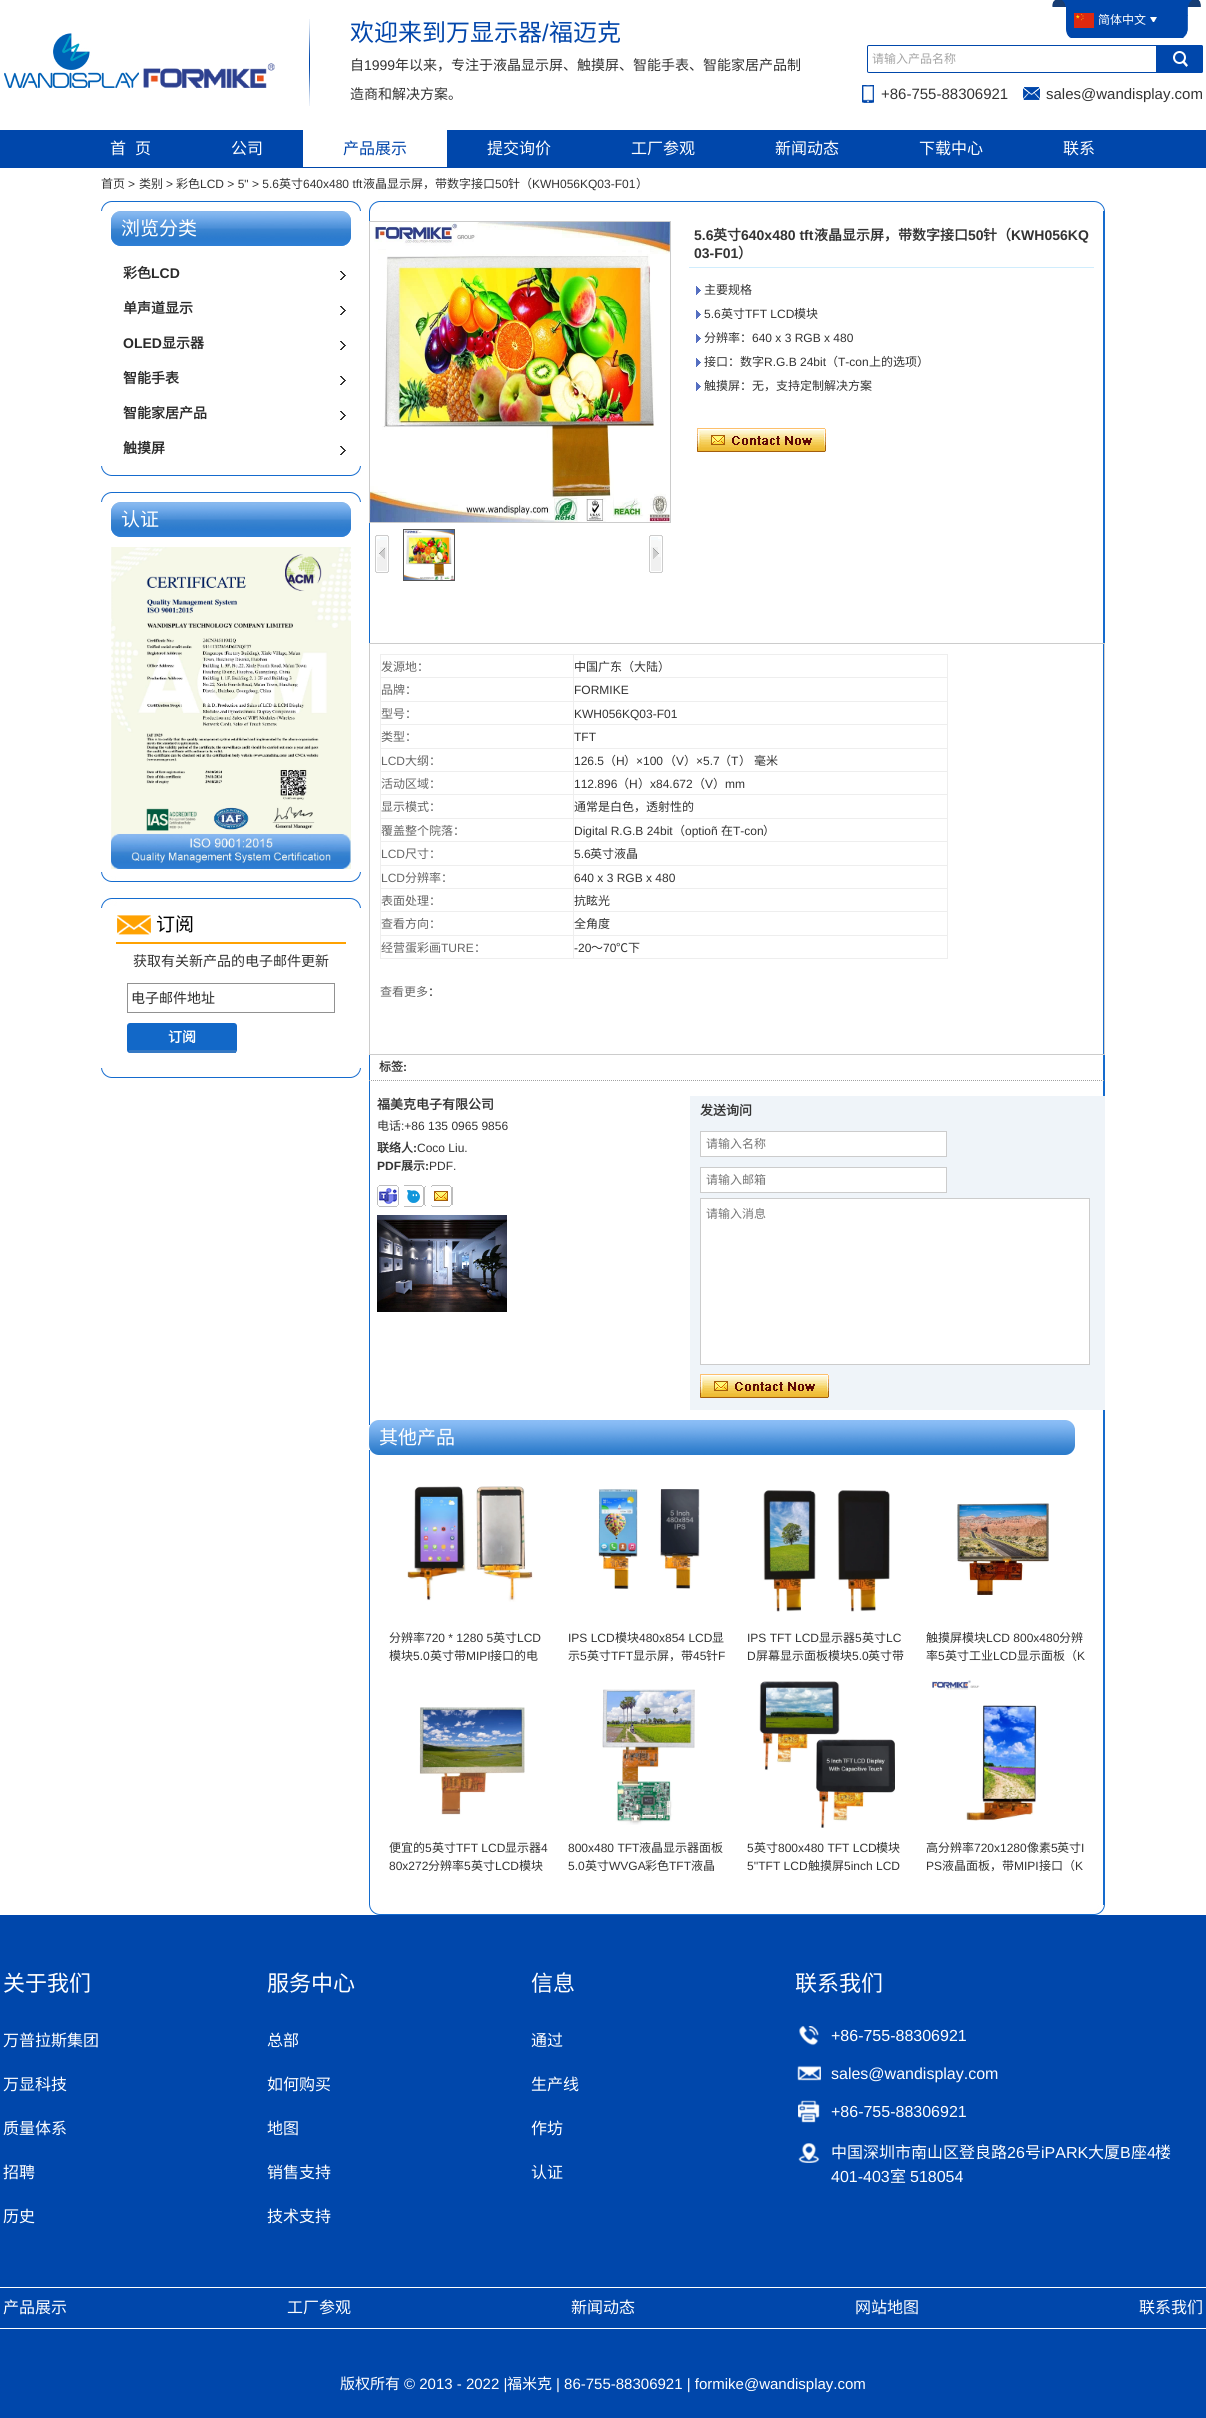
#include <cairo/cairo.h>
#include <math.h>
#include <stddef.h>

static cairo_t *cr;

static void use_color(int r, int g, int b) {
  cairo_set_source_rgb(cr, r / 255.0, g / 255.0, b / 255.0);
}

static void text(double x, double y, const char *s, const char *family, double size, int italic, int bold, int r, int g, int b) {
  cairo_select_font_face(cr, family, italic ? CAIRO_FONT_SLANT_ITALIC : CAIRO_FONT_SLANT_NORMAL,
    bold ? CAIRO_FONT_WEIGHT_BOLD : CAIRO_FONT_WEIGHT_NORMAL);
  cairo_set_font_size(cr, size);
  use_color(r, g, b);
  cairo_move_to(cr, x, y);
  cairo_show_text(cr, s);
}

static void box(double x, double y, double w, double h, int r, int g, int b) {
  use_color(r, g, b);
  cairo_rectangle(cr, x, y, w, h);
  cairo_fill(cr);
}

static void round_rect(double x, double y, double w, double h, double r) {
  cairo_new_sub_path(cr);
  cairo_arc(cr, x + w - r, y + h - r, r, 0, M_PI / 2);
  cairo_arc(cr, x + r, y + h - r, r, M_PI / 2, M_PI);
  cairo_arc(cr, x + r, y + r, r, M_PI, 1.5 * M_PI);
  cairo_arc(cr, x + w - r, y + r, r, 1.5 * M_PI, 2 * M_PI);
  cairo_close_path(cr);
}

static void picture(const char *path, double x, double y, double w, double h) {
  cairo_surface_t *image = cairo_image_surface_create_from_png(path);
  cairo_save(cr);
  cairo_set_source_surface(cr, image, x, y);
  cairo_rectangle(cr, x, y, w, h);
  cairo_fill(cr);
  cairo_restore(cr);
  cairo_surface_destroy(image);
}

static void draw(void) {
  use_color(255, 255, 255);
  cairo_paint(cr);
  picture("img_01.png", 309, 19, 1, 87);
  picture("img_02.png", 4, 33, 271, 55);
  picture("img_03.png", 1052, 0, 149, 38);
  picture("img_04.png", 1074, 13, 20, 15);
  picture("img_05.png", 1150, 17, 7, 5);
  cairo_new_path(cr);
  cairo_move_to(cr, 869, 45.5);
  cairo_line_to(cr, 1156.5, 45.5);
  cairo_line_to(cr, 1156.5, 72.5);
  cairo_line_to(cr, 869, 72.5);
  cairo_curve_to(cr, 868, 72.5, 867.5, 72, 867.5, 71);
  cairo_line_to(cr, 867.5, 47);
  cairo_curve_to(cr, 867.5, 46, 868, 45.5, 869, 45.5);
  cairo_close_path(cr);
  use_color(0, 71, 171);
  cairo_set_line_width(cr, 1);
  cairo_stroke(cr);
  cairo_new_path(cr);
  cairo_move_to(cr, 1157, 45);
  cairo_line_to(cr, 1201, 45);
  cairo_curve_to(cr, 1202, 45, 1203, 46, 1203, 47);
  cairo_line_to(cr, 1203, 71);
  cairo_curve_to(cr, 1203, 72, 1202, 73, 1201, 73);
  cairo_line_to(cr, 1157, 73);
  cairo_close_path(cr);
  cairo_fill(cr);
  picture("img_06.png", 1173, 51, 15, 16);
  cairo_new_path(cr);
  cairo_move_to(cr, 1157.5, 45.5);
  cairo_line_to(cr, 1201, 45.5);
  cairo_curve_to(cr, 1202, 45.5, 1202.5, 46, 1202.5, 47);
  cairo_line_to(cr, 1202.5, 71);
  cairo_curve_to(cr, 1202.5, 72, 1202, 72.5, 1201, 72.5);
  cairo_line_to(cr, 1157.5, 72.5);
  cairo_close_path(cr);
  cairo_stroke(cr);
  picture("img_07.png", 862, 85, 12, 18);
  picture("img_08.png", 1023, 87, 17, 13);
  box(0, 130, 1206, 38, 0, 71, 171);
  box(303, 130, 144, 37, 255, 255, 255);
  picture("img_09.png", 101, 201, 260, 10);
  picture("img_10.png", 111, 211, 240, 35);
  picture("img_11.png", 340, 271, 6, 9);
  picture("img_11.png", 340, 306, 6, 9);
  picture("img_11.png", 340, 341, 6, 9);
  picture("img_11.png", 340, 376, 6, 9);
  picture("img_11.png", 340, 411, 6, 9);
  picture("img_11.png", 340, 446, 6, 9);
  picture("img_12.png", 101, 466, 260, 10);
  picture("img_09.png", 101, 492, 260, 10);
  picture("img_10.png", 111, 502, 240, 35);
  picture("img_13.png", 111, 547, 240, 322);
  picture("img_12.png", 101, 872, 260, 10);
  picture("img_09.png", 101, 898, 260, 10);
  picture("img_14.png", 117, 915, 34, 20);
  box(116, 942, 230, 2, 255, 162, 1);
  cairo_rectangle(cr, 127.5, 983.5, 207, 29);
  use_color(145, 145, 145);
  cairo_stroke(cr);
  use_color(18, 104, 200);
  round_rect(127, 1023, 110, 30, 3);
  cairo_fill(cr);
  box(129, 1050, 107, 3, 53, 121, 196);
  picture("img_12.png", 101, 1068, 260, 10);
  picture("img_15.png", 369, 211, 736, 1694);
  picture("img_16.png", 369, 201, 736, 10);
  cairo_rectangle(cr, 369.5, 221.5, 301, 301);
  use_color(204, 204, 204);
  cairo_stroke(cr);
  picture("img_17.png", 370, 222, 300, 300);
  picture("img_18.png", 375, 535, 14, 38);
  cairo_rectangle(cr, 403.5, 529.5, 51, 51);
  use_color(85, 85, 85);
  cairo_stroke(cr);
  picture("img_19.png", 404, 530, 50, 50);
  picture("img_20.png", 649, 535, 14, 38);
  box(689, 267, 405, 1, 208, 237, 253);
  picture("img_21.png", 696, 286, 5, 9);
  picture("img_21.png", 696, 310, 5, 9);
  picture("img_21.png", 696, 334, 5, 9);
  picture("img_21.png", 696, 358, 5, 9);
  picture("img_21.png", 696, 382, 5, 9);
  picture("img_22.png", 697, 428, 129, 24);
  cairo_rectangle(cr, 369.5, 643.5, 735, 411);
  use_color(204, 204, 204);
  cairo_stroke(cr);
  box(573, 654, 375, 1, 238, 238, 238);
  box(573, 677, 375, 1, 238, 238, 238);
  box(573, 701, 375, 1, 238, 238, 238);
  box(573, 724, 375, 1, 238, 238, 238);
  box(573, 748, 375, 1, 238, 238, 238);
  box(573, 771, 375, 1, 238, 238, 238);
  box(573, 794, 375, 1, 238, 238, 238);
  box(573, 818, 375, 1, 238, 238, 238);
  box(573, 841, 375, 1, 238, 238, 238);
  box(573, 865, 375, 1, 238, 238, 238);
  box(573, 888, 375, 1, 238, 238, 238);
  box(573, 911, 375, 1, 238, 238, 238);
  box(573, 935, 375, 1, 238, 238, 238);
  box(947, 935, 1, 24, 238, 238, 238);
  box(573, 958, 375, 1, 238, 238, 238);
  box(573, 935, 1, 24, 238, 238, 238);
  box(380, 935, 194, 1, 238, 238, 238);
  box(573, 911, 1, 25, 238, 238, 238);
  box(380, 911, 194, 1, 238, 238, 238);
  box(573, 888, 1, 24, 238, 238, 238);
  box(380, 888, 194, 1, 238, 238, 238);
  box(573, 865, 1, 24, 238, 238, 238);
  box(380, 865, 194, 1, 238, 238, 238);
  box(573, 841, 1, 25, 238, 238, 238);
  box(380, 841, 194, 1, 238, 238, 238);
  box(573, 818, 1, 24, 238, 238, 238);
  box(380, 818, 194, 1, 238, 238, 238);
  box(573, 794, 1, 25, 238, 238, 238);
  box(380, 794, 194, 1, 238, 238, 238);
  box(573, 771, 1, 24, 238, 238, 238);
  box(380, 771, 194, 1, 238, 238, 238);
  box(573, 748, 1, 24, 238, 238, 238);
  box(380, 748, 194, 1, 238, 238, 238);
  box(573, 724, 1, 25, 238, 238, 238);
  box(380, 724, 194, 1, 238, 238, 238);
  box(573, 701, 1, 24, 238, 238, 238);
  box(380, 701, 194, 1, 238, 238, 238);
  box(573, 677, 1, 25, 238, 238, 238);
  box(380, 677, 194, 1, 238, 238, 238);
  box(573, 654, 1, 24, 238, 238, 238);
  box(380, 654, 194, 1, 238, 238, 238);
  box(380, 958, 194, 1, 238, 238, 238);
  box(380, 935, 1, 24, 238, 238, 238);
  box(380, 911, 1, 25, 238, 238, 238);
  box(380, 888, 1, 24, 238, 238, 238);
  box(380, 865, 1, 24, 238, 238, 238);
  box(380, 841, 1, 25, 238, 238, 238);
  box(380, 818, 1, 24, 238, 238, 238);
  box(380, 794, 1, 25, 238, 238, 238);
  box(380, 771, 1, 24, 238, 238, 238);
  box(380, 748, 1, 24, 238, 238, 238);
  box(380, 724, 1, 25, 238, 238, 238);
  box(380, 701, 1, 24, 238, 238, 238);
  box(380, 677, 1, 25, 238, 238, 238);
  box(380, 654, 1, 24, 238, 238, 238);
  box(947, 911, 1, 25, 238, 238, 238);
  box(947, 888, 1, 24, 238, 238, 238);
  box(947, 865, 1, 24, 238, 238, 238);
  box(947, 841, 1, 25, 238, 238, 238);
  box(947, 818, 1, 24, 238, 238, 238);
  box(947, 794, 1, 25, 238, 238, 238);
  box(947, 771, 1, 24, 238, 238, 238);
  box(947, 748, 1, 24, 238, 238, 238);
  box(947, 724, 1, 25, 238, 238, 238);
  box(947, 701, 1, 24, 238, 238, 238);
  box(947, 677, 1, 25, 238, 238, 238);
  box(947, 654, 1, 24, 238, 238, 238);
  cairo_new_path(cr);
  cairo_move_to(cr, 369, 1080.5);
  cairo_line_to(cr, 1105, 1080.5);
  use_color(162, 162, 162);
  cairo_set_dash(cr, (double[]){1, 1}, 2, 0);
  cairo_stroke(cr);
  picture("img_23.png", 377, 1185, 22, 22);
  picture("img_24.png", 404, 1185, 22, 22);
  picture("img_25.png", 431, 1185, 22, 22);
  picture("img_26.png", 377, 1215, 130, 97);
  box(690, 1096, 415, 314, 239, 244, 249);
  use_color(255, 255, 255);
  cairo_rectangle(cr, 700.5, 1131.5, 246, 25);
  cairo_fill_preserve(cr);
  use_color(204, 204, 204);
  cairo_set_dash(cr, NULL, 0, 0);
  cairo_stroke(cr);
  use_color(255, 255, 255);
  cairo_rectangle(cr, 700.5, 1167.5, 246, 25);
  cairo_fill_preserve(cr);
  use_color(204, 204, 204);
  cairo_stroke(cr);
  use_color(255, 255, 255);
  cairo_rectangle(cr, 700.5, 1198.5, 389, 166);
  cairo_fill_preserve(cr);
  use_color(204, 204, 204);
  cairo_stroke(cr);
  picture("img_22.png", 700, 1374, 129, 24);
  picture("img_27.png", 369, 1420, 706, 35);
  picture("img_28.png", 407, 1486, 126, 116);
  picture("img_29.png", 598, 1489, 102, 100);
  picture("img_30.png", 763, 1490, 127, 122);
  picture("img_31.png", 957, 1503, 92, 92);
  picture("img_32.png", 419, 1707, 106, 108);
  picture("img_33.png", 602, 1689, 93, 136);
  picture("img_34.png", 759, 1681, 136, 147);
  picture("img_35.png", 932, 1680, 105, 141);
  picture("img_36.png", 369, 1905, 736, 10);
  box(0, 1915, 1206, 503, 0, 71, 171);
  picture("img_37.png", 799, 2026, 20, 20);
  picture("img_38.png", 797, 2065, 24, 16);
  picture("img_39.png", 798, 2100, 22, 23);
  picture("img_40.png", 798, 2143, 22, 20);
  box(0, 2287, 1206, 1, 255, 255, 255);
  box(0, 2328, 1206, 1, 255, 255, 255);
  text(350, 41, "欢迎来到万显示器", "Noto Sans CJK SC", 24, 0, 0, 2, 70, 171);
  text(542, 41, "/", "Liberation Sans", 24, 0, 0, 2, 70, 171);
  text(549, 41, "福迈克", "Noto Sans CJK SC", 24, 0, 0, 2, 70, 171);
  text(350, 70, "自", "Noto Sans CJK SC", 14, 0, 0, 51, 51, 51);
  text(364, 70, "1999", "Liberation Sans", 14, 0, 0, 51, 51, 51);
  text(395, 70, "年以来，专注于液晶显示屏、触摸屏、智能手表、智能家居产品制", "Noto Sans CJK SC", 14, 0, 0, 51, 51, 51);
  text(350, 99, "造商和解决方案。", "Noto Sans CJK SC", 14, 0, 0, 51, 51, 51);
  text(1098, 24, "简体中文", "Noto Sans CJK SC", 12, 0, 0, 255, 255, 255);
  text(872, 63, "请输入产品名称", "Noto Sans CJK SC", 12, 0, 0, 164, 164, 164);
  text(881, 99, "+86-755-88306921", "Liberation Sans", 15, 0, 0, 51, 51, 51);
  text(1046, 99, "sales@wandisplay.com", "Liberation Sans", 15, 0, 0, 51, 51, 51);
  text(110, 154, "首", "Noto Sans CJK SC", 16, 0, 0, 255, 255, 255);
  text(135, 154, "页", "Noto Sans CJK SC", 16, 0, 0, 255, 255, 255);
  text(231, 154, "公司", "Noto Sans CJK SC", 16, 0, 0, 255, 255, 255);
  text(343, 154, "产品展示", "Noto Sans CJK SC", 16, 0, 0, 2, 70, 171);
  text(487, 154, "提交询价", "Noto Sans CJK SC", 16, 0, 0, 255, 255, 255);
  text(631, 154, "工厂参观", "Noto Sans CJK SC", 16, 0, 0, 255, 255, 255);
  text(775, 154, "新闻动态", "Noto Sans CJK SC", 16, 0, 0, 255, 255, 255);
  text(919, 154, "下载中心", "Noto Sans CJK SC", 16, 0, 0, 255, 255, 255);
  text(1063, 154, "联系", "Noto Sans CJK SC", 16, 0, 0, 255, 255, 255);
  text(101, 188, "首页", "Noto Sans CJK SC", 12, 0, 0, 51, 51, 51);
  text(128, 188, ">", "Liberation Sans", 12, 0, 0, 51, 51, 51);
  text(139, 188, "类别", "Noto Sans CJK SC", 12, 0, 0, 51, 51, 51);
  text(166, 188, ">", "Liberation Sans", 12, 0, 0, 51, 51, 51);
  text(176, 188, "彩色", "Noto Sans CJK SC", 12, 0, 0, 51, 51, 51);
  text(200, 188, "LCD > 5\" > 5.6", "Liberation Sans", 12, 0, 0, 51, 51, 51);
  text(279, 188, "英寸", "Noto Sans CJK SC", 12, 0, 0, 51, 51, 51);
  text(303, 188, "640x480 tft", "Liberation Sans", 12, 0, 0, 51, 51, 51);
  text(363, 188, "液晶显示屏，带数字接口", "Noto Sans CJK SC", 12, 0, 0, 51, 51, 51);
  text(495, 188, "50", "Liberation Sans", 12, 0, 0, 51, 51, 51);
  text(508, 188, "针（", "Noto Sans CJK SC", 12, 0, 0, 51, 51, 51);
  text(532, 188, "KWH056KQ03-F01", "Liberation Sans", 12, 0, 0, 51, 51, 51);
  text(636, 188, "）", "Noto Sans CJK SC", 12, 0, 0, 51, 51, 51);
  text(121, 235, "浏览分类", "Noto Sans CJK SC", 19, 0, 0, 255, 255, 255);
  text(123, 278, "彩色", "Noto Sans CJK SC", 14, 0, 1, 42, 42, 42);
  text(151, 278, "LCD", "Liberation Sans", 14, 0, 1, 42, 42, 42);
  text(123, 313, "单声道显示", "Noto Sans CJK SC", 14, 0, 1, 42, 42, 42);
  text(123, 348, "OLED", "Liberation Sans", 14, 0, 1, 42, 42, 42);
  text(162, 348, "显示器", "Noto Sans CJK SC", 14, 0, 1, 42, 42, 42);
  text(123, 383, "智能手表", "Noto Sans CJK SC", 14, 0, 1, 42, 42, 42);
  text(123, 418, "智能家居产品", "Noto Sans CJK SC", 14, 0, 1, 42, 42, 42);
  text(123, 453, "触摸屏", "Noto Sans CJK SC", 14, 0, 1, 42, 42, 42);
  text(121, 526, "认证", "Noto Sans CJK SC", 19, 0, 0, 255, 255, 255);
  text(156, 931, "订阅", "Noto Sans CJK SC", 19, 0, 0, 0, 0, 0);
  text(133, 966, "获取有关新产品的电子邮件更新", "Noto Sans CJK SC", 14, 0, 0, 51, 51, 51);
  text(131, 1003, "电子邮件地址", "Noto Sans CJK SC", 14, 0, 0, 42, 42, 42);
  text(168, 1042, "订阅", "Noto Sans CJK SC", 14, 0, 1, 255, 255, 255);
  text(694, 240, "5.6", "Liberation Sans", 14, 0, 1, 51, 51, 51);
  text(713, 240, "英寸", "Noto Sans CJK SC", 14, 0, 1, 51, 51, 51);
  text(741, 240, "640x480 tft", "Liberation Sans", 14, 0, 1, 51, 51, 51);
  text(814, 240, "液晶显示屏，带数字接口", "Noto Sans CJK SC", 14, 0, 1, 51, 51, 51);
  text(968, 240, "50", "Liberation Sans", 14, 0, 1, 51, 51, 51);
  text(983, 240, "针（", "Noto Sans CJK SC", 14, 0, 1, 51, 51, 51);
  text(1011, 240, "KWH056KQ", "Liberation Sans", 14, 0, 1, 51, 51, 51);
  text(694, 258, "03-F01", "Liberation Sans", 14, 0, 1, 51, 51, 51);
  text(738, 258, "）", "Noto Sans CJK SC", 14, 0, 1, 51, 51, 51);
  text(704, 294, "主要规格", "Noto Sans CJK SC", 12, 0, 0, 51, 51, 51);
  text(704, 318, "5.6", "Liberation Sans", 12, 0, 0, 51, 51, 51);
  text(721, 318, "英寸", "Noto Sans CJK SC", 12, 0, 0, 51, 51, 51);
  text(745, 318, "TFT LCD", "Liberation Sans", 12, 0, 0, 51, 51, 51);
  text(794, 318, "模块", "Noto Sans CJK SC", 12, 0, 0, 51, 51, 51);
  text(704, 342, "分辨率：", "Noto Sans CJK SC", 12, 0, 0, 51, 51, 51);
  text(752, 342, "640 x 3 RGB x 480", "Liberation Sans", 12, 0, 0, 51, 51, 51);
  text(704, 366, "接口：数字", "Noto Sans CJK SC", 12, 0, 0, 51, 51, 51);
  text(764, 366, "R.G.B 24bit", "Liberation Sans", 12, 0, 0, 51, 51, 51);
  text(826, 366, "（", "Noto Sans CJK SC", 12, 0, 0, 51, 51, 51);
  text(838, 366, "T-con", "Liberation Sans", 12, 0, 0, 51, 51, 51);
  text(869, 366, "上的选项）", "Noto Sans CJK SC", 12, 0, 0, 51, 51, 51);
  text(704, 390, "触摸屏：无，支持定制解决方案", "Noto Sans CJK SC", 12, 0, 0, 51, 51, 51);
  text(381, 671, "发源地：", "Noto Sans CJK SC", 12, 0, 0, 102, 102, 102);
  text(574, 671, "中国广东（大陆）", "Noto Sans CJK SC", 12, 0, 0, 51, 51, 51);
  text(381, 694, "品牌：", "Noto Sans CJK SC", 12, 0, 0, 102, 102, 102);
  text(574, 694, "FORMIKE", "Liberation Sans", 12, 0, 0, 51, 51, 51);
  text(381, 718, "型号：", "Noto Sans CJK SC", 12, 0, 0, 102, 102, 102);
  text(574, 718, "KWH056KQ03-F01", "Liberation Sans", 12, 0, 0, 51, 51, 51);
  text(381, 741, "类型：", "Noto Sans CJK SC", 12, 0, 0, 102, 102, 102);
  text(574, 741, "TFT", "Liberation Sans", 12, 0, 0, 51, 51, 51);
  text(381, 765, "LCD", "Liberation Sans", 12, 0, 0, 102, 102, 102);
  text(405, 765, "大纲：", "Noto Sans CJK SC", 12, 0, 0, 102, 102, 102);
  text(574, 765, "126.5", "Liberation Sans", 12, 0, 0, 51, 51, 51);
  text(604, 765, "（", "Noto Sans CJK SC", 12, 0, 0, 51, 51, 51);
  text(616, 765, "H", "Liberation Sans", 12, 0, 0, 51, 51, 51);
  text(624, 765, "）", "Noto Sans CJK SC", 12, 0, 0, 51, 51, 51);
  text(636, 765, "×100", "Liberation Sans", 12, 0, 0, 51, 51, 51);
  text(664, 765, "（", "Noto Sans CJK SC", 12, 0, 0, 51, 51, 51);
  text(676, 765, "V", "Liberation Sans", 12, 0, 0, 51, 51, 51);
  text(684, 765, "）", "Noto Sans CJK SC", 12, 0, 0, 51, 51, 51);
  text(696, 765, "×5.7", "Liberation Sans", 12, 0, 0, 51, 51, 51);
  text(719, 765, "（", "Noto Sans CJK SC", 12, 0, 0, 51, 51, 51);
  text(731, 765, "T", "Liberation Sans", 12, 0, 0, 51, 51, 51);
  text(739, 765, "）", "Noto Sans CJK SC", 12, 0, 0, 51, 51, 51);
  text(754, 765, "毫米", "Noto Sans CJK SC", 12, 0, 0, 51, 51, 51);
  text(381, 788, "活动区域：", "Noto Sans CJK SC", 12, 0, 0, 102, 102, 102);
  text(574, 788, "112.896", "Liberation Sans", 12, 0, 0, 51, 51, 51);
  text(617, 788, "（", "Noto Sans CJK SC", 12, 0, 0, 51, 51, 51);
  text(629, 788, "H", "Liberation Sans", 12, 0, 0, 51, 51, 51);
  text(638, 788, "）", "Noto Sans CJK SC", 12, 0, 0, 51, 51, 51);
  text(650, 788, "x84.672", "Liberation Sans", 12, 0, 0, 51, 51, 51);
  text(693, 788, "（", "Noto Sans CJK SC", 12, 0, 0, 51, 51, 51);
  text(705, 788, "V", "Liberation Sans", 12, 0, 0, 51, 51, 51);
  text(713, 788, "）", "Noto Sans CJK SC", 12, 0, 0, 51, 51, 51);
  text(725, 788, "mm", "Liberation Sans", 12, 0, 0, 51, 51, 51);
  text(381, 811, "显示模式：", "Noto Sans CJK SC", 12, 0, 0, 102, 102, 102);
  text(574, 811, "通常是白色，透射性的", "Noto Sans CJK SC", 12, 0, 0, 51, 51, 51);
  text(381, 835, "覆盖整个院落：", "Noto Sans CJK SC", 12, 0, 0, 102, 102, 102);
  text(574, 835, "Digital R.G.B 24bit", "Liberation Sans", 12, 0, 0, 51, 51, 51);
  text(673, 835, "（", "Noto Sans CJK SC", 12, 0, 0, 51, 51, 51);
  text(685, 835, "optioñ", "Liberation Sans", 12, 0, 0, 51, 51, 51);
  text(721, 835, "在", "Noto Sans CJK SC", 12, 0, 0, 51, 51, 51);
  text(733, 835, "T-con", "Liberation Sans", 12, 0, 0, 51, 51, 51);
  text(763, 835, "）", "Noto Sans CJK SC", 12, 0, 0, 51, 51, 51);
  text(381, 858, "LCD", "Liberation Sans", 12, 0, 0, 102, 102, 102);
  text(405, 858, "尺寸：", "Noto Sans CJK SC", 12, 0, 0, 102, 102, 102);
  text(574, 858, "5.6", "Liberation Sans", 12, 0, 0, 51, 51, 51);
  text(590, 858, "英寸液晶", "Noto Sans CJK SC", 12, 0, 0, 51, 51, 51);
  text(381, 882, "LCD", "Liberation Sans", 12, 0, 0, 102, 102, 102);
  text(405, 882, "分辨率：", "Noto Sans CJK SC", 12, 0, 0, 102, 102, 102);
  text(574, 882, "640 x 3 RGB x 480", "Liberation Sans", 12, 0, 0, 51, 51, 51);
  text(381, 905, "表面处理：", "Noto Sans CJK SC", 12, 0, 0, 102, 102, 102);
  text(574, 905, "抗眩光", "Noto Sans CJK SC", 12, 0, 0, 51, 51, 51);
  text(381, 928, "查看方向：", "Noto Sans CJK SC", 12, 0, 0, 102, 102, 102);
  text(574, 928, "全角度", "Noto Sans CJK SC", 12, 0, 0, 51, 51, 51);
  text(381, 952, "经营蛋彩画", "Noto Sans CJK SC", 12, 0, 0, 102, 102, 102);
  text(441, 952, "TURE", "Liberation Sans", 12, 0, 0, 102, 102, 102);
  text(474, 952, "：", "Noto Sans CJK SC", 12, 0, 0, 102, 102, 102);
  text(574, 952, "-20", "Liberation Sans", 12, 0, 0, 51, 51, 51);
  text(591, 952, "〜", "Noto Sans CJK SC", 12, 0, 0, 51, 51, 51);
  text(603, 952, "70", "Liberation Sans", 12, 0, 0, 51, 51, 51);
  text(616, 952, "℃下", "Noto Sans CJK SC", 12, 0, 0, 51, 51, 51);
  text(380, 996, "查看更多", "Noto Sans CJK SC", 12, 0, 0, 102, 102, 102);
  text(428, 996, "：", "Noto Sans CJK SC", 12, 0, 0, 51, 51, 51);
  text(379, 1071, "标签", "Noto Sans CJK SC", 12, 0, 1, 51, 51, 51);
  text(403, 1071, ":", "Liberation Sans", 12, 0, 1, 51, 51, 51);
  text(377, 1109, "福美克电子有限公司", "Noto Sans CJK SC", 13, 0, 1, 51, 51, 51);
  text(377, 1130, "电话", "Noto Sans CJK SC", 12, 0, 0, 51, 51, 51);
  text(401, 1130, ":+86 135 0965 9856", "Liberation Sans", 12, 0, 0, 51, 51, 51);
  text(377, 1152, "联络人", "Noto Sans CJK SC", 12, 0, 1, 51, 51, 51);
  text(413, 1152, ":", "Liberation Sans", 12, 0, 1, 51, 51, 51);
  text(417, 1152, "Coco Liu.", "Liberation Sans", 12, 0, 0, 51, 51, 51);
  text(377, 1170, "PDF", "Liberation Sans", 12, 0, 1, 51, 51, 51);
  text(401, 1170, "展示", "Noto Sans CJK SC", 12, 0, 1, 51, 51, 51);
  text(425, 1170, ":", "Liberation Sans", 12, 0, 1, 51, 51, 51);
  text(429, 1170, "PDF.", "Liberation Sans", 12, 0, 0, 51, 51, 51);
  text(700, 1115, "发送询问", "Noto Sans CJK SC", 13, 0, 1, 51, 51, 51);
  text(706, 1148, "请输入名称", "Noto Sans CJK SC", 12, 0, 0, 117, 117, 117);
  text(706, 1184, "请输入邮箱", "Noto Sans CJK SC", 12, 0, 0, 117, 117, 117);
  text(706, 1218, "请输入消息", "Noto Sans CJK SC", 12, 0, 0, 117, 117, 117);
  text(379, 1444, "其他产品", "Noto Sans CJK SC", 19, 0, 0, 255, 255, 255);
  text(389, 1642, "分辨率", "Noto Sans CJK SC", 12, 0, 0, 51, 51, 51);
  text(425, 1642, "720 * 1280 5", "Liberation Sans", 12, 0, 0, 51, 51, 51);
  text(493, 1642, "英寸", "Noto Sans CJK SC", 12, 0, 0, 51, 51, 51);
  text(517, 1642, "LCD", "Liberation Sans", 12, 0, 0, 51, 51, 51);
  text(389, 1660, "模块", "Noto Sans CJK SC", 12, 0, 0, 51, 51, 51);
  text(413, 1660, "5.0", "Liberation Sans", 12, 0, 0, 51, 51, 51);
  text(430, 1660, "英寸带", "Noto Sans CJK SC", 12, 0, 0, 51, 51, 51);
  text(466, 1660, "MIPI", "Liberation Sans", 12, 0, 0, 51, 51, 51);
  text(490, 1660, "接口的电", "Noto Sans CJK SC", 12, 0, 0, 51, 51, 51);
  text(568, 1642, "IPS LCD", "Liberation Sans", 12, 0, 0, 51, 51, 51);
  text(615, 1642, "模块", "Noto Sans CJK SC", 12, 0, 0, 51, 51, 51);
  text(639, 1642, "480x854 LCD", "Liberation Sans", 12, 0, 0, 51, 51, 51);
  text(712, 1642, "显", "Noto Sans CJK SC", 12, 0, 0, 51, 51, 51);
  text(568, 1660, "示", "Noto Sans CJK SC", 12, 0, 0, 51, 51, 51);
  text(580, 1660, "5", "Liberation Sans", 12, 0, 0, 51, 51, 51);
  text(587, 1660, "英寸", "Noto Sans CJK SC", 12, 0, 0, 51, 51, 51);
  text(611, 1660, "TFT", "Liberation Sans", 12, 0, 0, 51, 51, 51);
  text(633, 1660, "显示屏，带", "Noto Sans CJK SC", 12, 0, 0, 51, 51, 51);
  text(693, 1660, "45", "Liberation Sans", 12, 0, 0, 51, 51, 51);
  text(706, 1660, "针", "Noto Sans CJK SC", 12, 0, 0, 51, 51, 51);
  text(718, 1660, "F", "Liberation Sans", 12, 0, 0, 51, 51, 51);
  text(747, 1642, "IPS TFT LCD", "Liberation Sans", 12, 0, 0, 51, 51, 51);
  text(819, 1642, "显示器", "Noto Sans CJK SC", 12, 0, 0, 51, 51, 51);
  text(855, 1642, "5", "Liberation Sans", 12, 0, 0, 51, 51, 51);
  text(862, 1642, "英寸", "Noto Sans CJK SC", 12, 0, 0, 51, 51, 51);
  text(886, 1642, "LC", "Liberation Sans", 12, 0, 0, 51, 51, 51);
  text(747, 1660, "D", "Liberation Sans", 12, 0, 0, 51, 51, 51);
  text(756, 1660, "屏幕显示面板模块", "Noto Sans CJK SC", 12, 0, 0, 51, 51, 51);
  text(852, 1660, "5.0", "Liberation Sans", 12, 0, 0, 51, 51, 51);
  text(868, 1660, "英寸带", "Noto Sans CJK SC", 12, 0, 0, 51, 51, 51);
  text(926, 1642, "触摸屏模块", "Noto Sans CJK SC", 12, 0, 0, 51, 51, 51);
  text(986, 1642, "LCD 800x480", "Liberation Sans", 12, 0, 0, 51, 51, 51);
  text(1059, 1642, "分辨", "Noto Sans CJK SC", 12, 0, 0, 51, 51, 51);
  text(926, 1660, "率", "Noto Sans CJK SC", 12, 0, 0, 51, 51, 51);
  text(938, 1660, "5", "Liberation Sans", 12, 0, 0, 51, 51, 51);
  text(945, 1660, "英寸工业", "Noto Sans CJK SC", 12, 0, 0, 51, 51, 51);
  text(993, 1660, "LCD", "Liberation Sans", 12, 0, 0, 51, 51, 51);
  text(1017, 1660, "显示面板（", "Noto Sans CJK SC", 12, 0, 0, 51, 51, 51);
  text(1077, 1660, "K", "Liberation Sans", 12, 0, 0, 51, 51, 51);
  text(389, 1852, "便宜的", "Noto Sans CJK SC", 12, 0, 0, 51, 51, 51);
  text(425, 1852, "5", "Liberation Sans", 12, 0, 0, 51, 51, 51);
  text(432, 1852, "英寸", "Noto Sans CJK SC", 12, 0, 0, 51, 51, 51);
  text(456, 1852, "TFT LCD", "Liberation Sans", 12, 0, 0, 51, 51, 51);
  text(505, 1852, "显示器", "Noto Sans CJK SC", 12, 0, 0, 51, 51, 51);
  text(541, 1852, "4", "Liberation Sans", 12, 0, 0, 51, 51, 51);
  text(389, 1870, "80x272", "Liberation Sans", 12, 0, 0, 51, 51, 51);
  text(428, 1870, "分辨率", "Noto Sans CJK SC", 12, 0, 0, 51, 51, 51);
  text(464, 1870, "5", "Liberation Sans", 12, 0, 0, 51, 51, 51);
  text(471, 1870, "英寸", "Noto Sans CJK SC", 12, 0, 0, 51, 51, 51);
  text(495, 1870, "LCD", "Liberation Sans", 12, 0, 0, 51, 51, 51);
  text(519, 1870, "模块", "Noto Sans CJK SC", 12, 0, 0, 51, 51, 51);
  text(568, 1852, "800x480 TFT", "Liberation Sans", 12, 0, 0, 51, 51, 51);
  text(639, 1852, "液晶显示器面板", "Noto Sans CJK SC", 12, 0, 0, 51, 51, 51);
  text(568, 1870, "5.0", "Liberation Sans", 12, 0, 0, 51, 51, 51);
  text(585, 1870, "英寸", "Noto Sans CJK SC", 12, 0, 0, 51, 51, 51);
  text(609, 1870, "WVGA", "Liberation Sans", 12, 0, 0, 51, 51, 51);
  text(645, 1870, "彩色", "Noto Sans CJK SC", 12, 0, 0, 51, 51, 51);
  text(669, 1870, "TFT", "Liberation Sans", 12, 0, 0, 51, 51, 51);
  text(691, 1870, "液晶", "Noto Sans CJK SC", 12, 0, 0, 51, 51, 51);
  text(747, 1852, "5", "Liberation Sans", 12, 0, 0, 51, 51, 51);
  text(754, 1852, "英寸", "Noto Sans CJK SC", 12, 0, 0, 51, 51, 51);
  text(778, 1852, "800x480 TFT LCD", "Liberation Sans", 12, 0, 0, 51, 51, 51);
  text(876, 1852, "模块", "Noto Sans CJK SC", 12, 0, 0, 51, 51, 51);
  text(747, 1870, "5''TFT LCD", "Liberation Sans", 12, 0, 0, 51, 51, 51);
  text(808, 1870, "触摸屏", "Noto Sans CJK SC", 12, 0, 0, 51, 51, 51);
  text(844, 1870, "5inch LCD", "Liberation Sans", 12, 0, 0, 51, 51, 51);
  text(926, 1852, "高分辨率", "Noto Sans CJK SC", 12, 0, 0, 51, 51, 51);
  text(974, 1852, "720x1280", "Liberation Sans", 12, 0, 0, 51, 51, 51);
  text(1027, 1852, "像素", "Noto Sans CJK SC", 12, 0, 0, 51, 51, 51);
  text(1051, 1852, "5", "Liberation Sans", 12, 0, 0, 51, 51, 51);
  text(1057, 1852, "英寸", "Noto Sans CJK SC", 12, 0, 0, 51, 51, 51);
  text(1081, 1852, "I", "Liberation Sans", 12, 0, 0, 51, 51, 51);
  text(926, 1870, "PS", "Liberation Sans", 12, 0, 0, 51, 51, 51);
  text(942, 1870, "液晶面板，带", "Noto Sans CJK SC", 12, 0, 0, 51, 51, 51);
  text(1014, 1870, "MIPI", "Liberation Sans", 12, 0, 0, 51, 51, 51);
  text(1039, 1870, "接口（", "Noto Sans CJK SC", 12, 0, 0, 51, 51, 51);
  text(1075, 1870, "K", "Liberation Sans", 12, 0, 0, 51, 51, 51);
  text(3, 1991, "关于我们", "Noto Sans CJK SC", 22, 0, 0, 255, 255, 255);
  text(3, 2046, "万普拉斯集团", "Noto Sans CJK SC", 16, 0, 0, 255, 255, 255);
  text(3, 2090, "万显科技", "Noto Sans CJK SC", 16, 0, 0, 255, 255, 255);
  text(3, 2134, "质量体系", "Noto Sans CJK SC", 16, 0, 0, 255, 255, 255);
  text(3, 2178, "招聘", "Noto Sans CJK SC", 16, 0, 0, 255, 255, 255);
  text(3, 2222, "历史", "Noto Sans CJK SC", 16, 0, 0, 255, 255, 255);
  text(267, 1991, "服务中心", "Noto Sans CJK SC", 22, 0, 0, 255, 255, 255);
  text(267, 2046, "总部", "Noto Sans CJK SC", 16, 0, 0, 255, 255, 255);
  text(267, 2090, "如何购买", "Noto Sans CJK SC", 16, 0, 0, 255, 255, 255);
  text(267, 2134, "地图", "Noto Sans CJK SC", 16, 0, 0, 255, 255, 255);
  text(267, 2178, "销售支持", "Noto Sans CJK SC", 16, 0, 0, 255, 255, 255);
  text(267, 2222, "技术支持", "Noto Sans CJK SC", 16, 0, 0, 255, 255, 255);
  text(531, 1991, "信息", "Noto Sans CJK SC", 22, 0, 0, 255, 255, 255);
  text(531, 2046, "通过", "Noto Sans CJK SC", 16, 0, 0, 255, 255, 255);
  text(531, 2090, "生产线", "Noto Sans CJK SC", 16, 0, 0, 255, 255, 255);
  text(531, 2134, "作坊", "Noto Sans CJK SC", 16, 0, 0, 255, 255, 255);
  text(531, 2178, "认证", "Noto Sans CJK SC", 16, 0, 0, 255, 255, 255);
  text(795, 1991, "联系我们", "Noto Sans CJK SC", 22, 0, 0, 255, 255, 255);
  text(831, 2041, "+86-755-88306921", "Liberation Sans", 16, 0, 0, 255, 255, 255);
  text(831, 2079, "sales@wandisplay.com", "Liberation Sans", 16, 0, 0, 255, 255, 255);
  text(831, 2117, "+86-755-88306921", "Liberation Sans", 16, 0, 0, 255, 255, 255);
  text(831, 2158, "中国深圳市南山区登良路", "Noto Sans CJK SC", 16, 0, 0, 255, 255, 255);
  text(1007, 2158, "26", "Liberation Sans", 16, 0, 0, 255, 255, 255);
  text(1025, 2158, "号", "Noto Sans CJK SC", 16, 0, 0, 255, 255, 255);
  text(1041, 2158, "iPARK", "Liberation Sans", 16, 0, 0, 255, 255, 255);
  text(1088, 2158, "大厦", "Noto Sans CJK SC", 16, 0, 0, 255, 255, 255);
  text(1120, 2158, "B", "Liberation Sans", 16, 0, 0, 255, 255, 255);
  text(1131, 2158, "座", "Noto Sans CJK SC", 16, 0, 0, 255, 255, 255);
  text(1147, 2158, "4", "Liberation Sans", 16, 0, 0, 255, 255, 255);
  text(1155, 2158, "楼", "Noto Sans CJK SC", 16, 0, 0, 255, 255, 255);
  text(831, 2182, "401-403", "Liberation Sans", 16, 0, 0, 255, 255, 255);
  text(890, 2182, "室", "Noto Sans CJK SC", 16, 0, 0, 255, 255, 255);
  text(910, 2182, "518054", "Liberation Sans", 16, 0, 0, 255, 255, 255);
  text(3, 2313, "产品展示", "Noto Sans CJK SC", 16, 0, 0, 255, 255, 255);
  text(287, 2313, "工厂参观", "Noto Sans CJK SC", 16, 0, 0, 255, 255, 255);
  text(571, 2313, "新闻动态", "Noto Sans CJK SC", 16, 0, 0, 255, 255, 255);
  text(855, 2313, "网站地图", "Noto Sans CJK SC", 16, 0, 0, 255, 255, 255);
  text(1139, 2313, "联系我们", "Noto Sans CJK SC", 16, 0, 0, 255, 255, 255);
  text(340, 2389, "版权所有", "Noto Sans CJK SC", 15, 0, 0, 255, 255, 255);
  text(404, 2389, "© 2013 - 2022 |", "Liberation Sans", 15, 0, 0, 255, 255, 255);
  text(507, 2389, "福米克", "Noto Sans CJK SC", 15, 0, 0, 255, 255, 255);
  text(556, 2389, "| 86-755-88306921 | formike@wandisplay.com", "Liberation Sans", 15, 0, 0, 255, 255, 255);
}

int main(void) {
  cairo_surface_t *surface = cairo_image_surface_create(CAIRO_FORMAT_RGB24, 1206, 2418);
  cr = cairo_create(surface);
  cairo_font_options_t *options = cairo_font_options_create();
  cairo_font_options_set_hint_metrics(options, CAIRO_HINT_METRICS_OFF);
  cairo_font_options_set_hint_style(options, CAIRO_HINT_STYLE_NONE);
  cairo_set_font_options(cr, options);
  cairo_set_miter_limit(cr, 4);
  draw();
  cairo_surface_write_to_png(surface, "out.png");
  cairo_font_options_destroy(options);
  cairo_destroy(cr);
  cairo_surface_destroy(surface);
  return 0;
}
